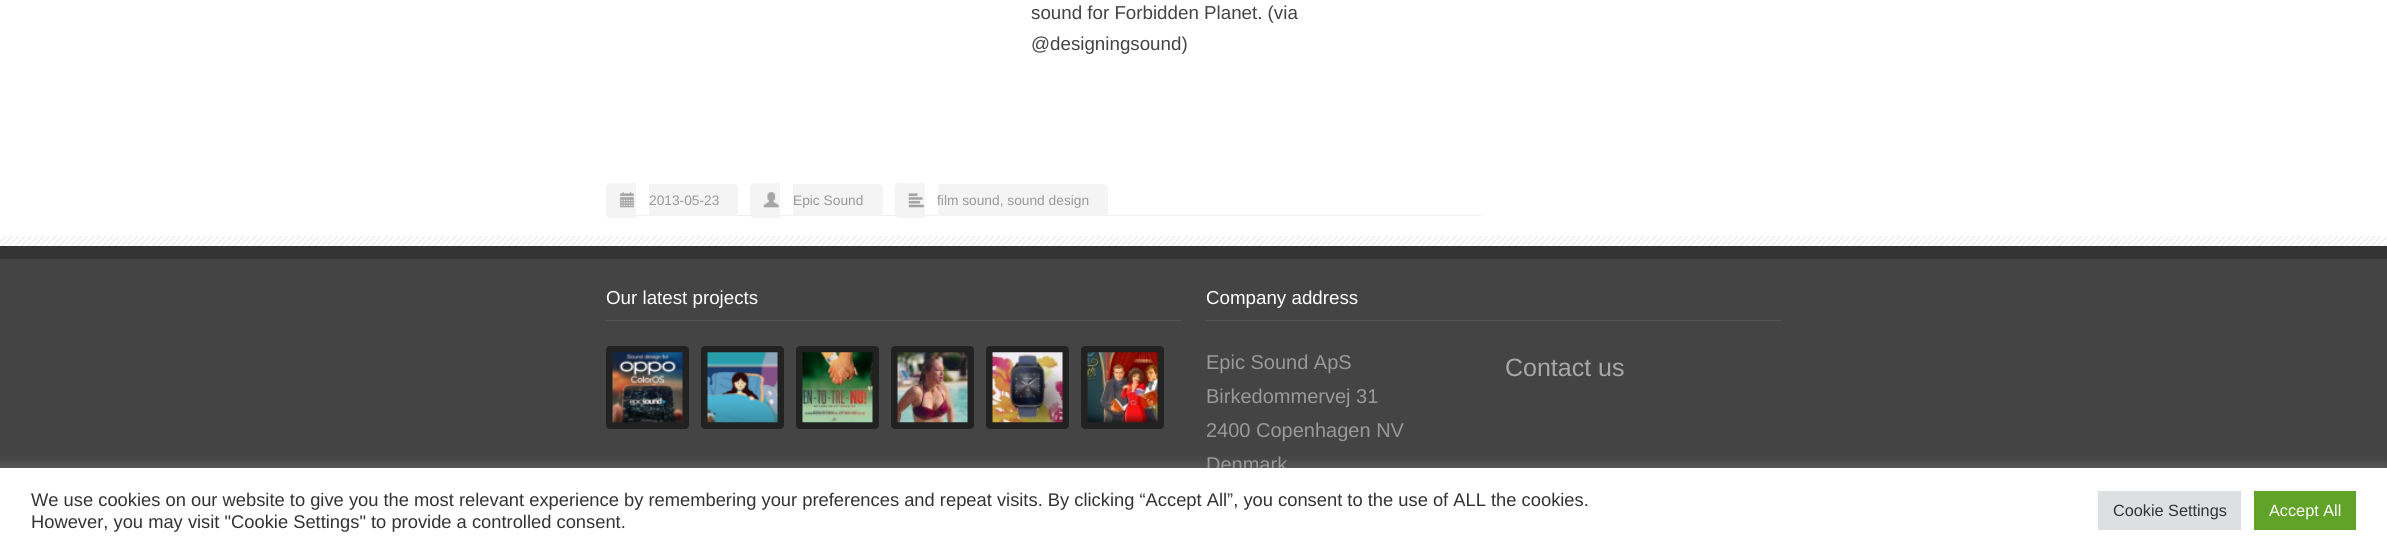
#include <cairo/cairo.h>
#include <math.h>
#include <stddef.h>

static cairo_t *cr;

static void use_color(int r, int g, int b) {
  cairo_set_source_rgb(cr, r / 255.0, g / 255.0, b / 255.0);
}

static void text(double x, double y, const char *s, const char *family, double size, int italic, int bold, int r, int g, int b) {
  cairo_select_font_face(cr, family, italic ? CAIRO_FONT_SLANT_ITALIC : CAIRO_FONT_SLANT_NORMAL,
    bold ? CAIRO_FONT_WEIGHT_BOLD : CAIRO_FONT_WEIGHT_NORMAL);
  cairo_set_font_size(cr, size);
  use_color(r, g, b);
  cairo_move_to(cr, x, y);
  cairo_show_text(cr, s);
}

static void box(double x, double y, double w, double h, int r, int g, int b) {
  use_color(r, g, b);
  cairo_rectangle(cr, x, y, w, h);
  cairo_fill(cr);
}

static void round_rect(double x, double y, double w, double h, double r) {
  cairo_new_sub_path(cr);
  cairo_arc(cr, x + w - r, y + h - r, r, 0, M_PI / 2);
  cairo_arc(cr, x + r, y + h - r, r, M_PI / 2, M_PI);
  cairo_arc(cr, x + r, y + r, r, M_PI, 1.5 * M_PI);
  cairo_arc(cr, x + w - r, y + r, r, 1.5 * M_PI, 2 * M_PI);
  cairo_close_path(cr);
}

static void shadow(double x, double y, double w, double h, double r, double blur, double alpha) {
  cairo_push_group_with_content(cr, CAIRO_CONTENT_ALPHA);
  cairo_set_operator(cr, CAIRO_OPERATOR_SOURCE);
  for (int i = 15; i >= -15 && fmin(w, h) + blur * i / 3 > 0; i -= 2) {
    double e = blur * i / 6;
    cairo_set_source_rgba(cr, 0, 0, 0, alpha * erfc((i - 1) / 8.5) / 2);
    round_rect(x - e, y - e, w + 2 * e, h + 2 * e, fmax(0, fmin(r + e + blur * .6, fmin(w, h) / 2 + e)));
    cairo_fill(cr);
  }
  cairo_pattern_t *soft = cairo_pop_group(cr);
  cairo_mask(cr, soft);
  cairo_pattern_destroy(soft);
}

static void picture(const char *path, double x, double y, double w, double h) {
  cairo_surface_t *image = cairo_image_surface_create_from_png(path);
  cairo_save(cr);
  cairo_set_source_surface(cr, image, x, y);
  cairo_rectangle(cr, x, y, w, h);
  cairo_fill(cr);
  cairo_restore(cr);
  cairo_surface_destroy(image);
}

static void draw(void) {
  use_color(255, 255, 255);
  cairo_paint(cr);
  box(606, 215, 875, 1, 239, 239, 239);
  use_color(244, 244, 244);
  cairo_new_path(cr);
  cairo_move_to(cr, 610, 183);
  cairo_line_to(cr, 636, 183);
  cairo_line_to(cr, 636, 218);
  cairo_line_to(cr, 610, 218);
  cairo_curve_to(cr, 608, 218, 606, 216, 606, 214);
  cairo_line_to(cr, 606, 187);
  cairo_curve_to(cr, 606, 185, 608, 183, 610, 183);
  cairo_close_path(cr);
  cairo_fill(cr);
  cairo_new_path(cr);
  cairo_move_to(cr, 649, 184);
  cairo_line_to(cr, 734, 184);
  cairo_curve_to(cr, 736, 184, 738, 186, 738, 188);
  cairo_line_to(cr, 738, 212);
  cairo_curve_to(cr, 738, 214, 736, 216, 734, 216);
  cairo_line_to(cr, 649, 216);
  cairo_close_path(cr);
  cairo_fill(cr);
  picture("img_01.png", 619, 192, 15, 16);
  cairo_new_path(cr);
  cairo_move_to(cr, 754, 183);
  cairo_line_to(cr, 780, 183);
  cairo_line_to(cr, 780, 218);
  cairo_line_to(cr, 754, 218);
  cairo_curve_to(cr, 752, 218, 750, 216, 750, 214);
  cairo_line_to(cr, 750, 187);
  cairo_curve_to(cr, 750, 185, 752, 183, 754, 183);
  cairo_close_path(cr);
  cairo_fill(cr);
  cairo_new_path(cr);
  cairo_move_to(cr, 793, 184);
  cairo_line_to(cr, 879, 184);
  cairo_curve_to(cr, 881, 184, 883, 186, 883, 188);
  cairo_line_to(cr, 883, 212);
  cairo_curve_to(cr, 883, 214, 881, 216, 879, 216);
  cairo_line_to(cr, 793, 216);
  cairo_close_path(cr);
  cairo_fill(cr);
  picture("img_02.png", 763, 192, 16, 16);
  cairo_new_path(cr);
  cairo_move_to(cr, 899, 183);
  cairo_line_to(cr, 925, 183);
  cairo_line_to(cr, 925, 218);
  cairo_line_to(cr, 899, 218);
  cairo_curve_to(cr, 897, 218, 895, 216, 895, 214);
  cairo_line_to(cr, 895, 187);
  cairo_curve_to(cr, 895, 185, 897, 183, 899, 183);
  cairo_close_path(cr);
  cairo_fill(cr);
  box(938, 184, 70, 32, 244, 244, 244);
  cairo_new_path(cr);
  cairo_move_to(cr, 1008, 184);
  cairo_line_to(cr, 1104, 184);
  cairo_curve_to(cr, 1106, 184, 1108, 186, 1108, 188);
  cairo_line_to(cr, 1108, 212);
  cairo_curve_to(cr, 1108, 214, 1106, 216, 1104, 216);
  cairo_line_to(cr, 1008, 216);
  cairo_close_path(cr);
  cairo_fill(cr);
  picture("img_03.png", 908, 193, 16, 15);
  picture("img_04.png", 0, 236, 2387, 10);
  box(0, 259, 2387, 209, 68, 68, 68);
  box(0, 246, 2387, 13, 51, 51, 51);
  box(606, 320, 575, 1, 85, 85, 85);
  use_color(34, 34, 34);
  round_rect(606.5, 346.5, 82, 82, 3.5);
  cairo_fill_preserve(cr);
  cairo_set_line_width(cr, 1);
  cairo_stroke(cr);
  picture("img_05.png", 612, 352, 71, 71);
  round_rect(701.5, 346.5, 82, 82, 3.5);
  cairo_fill_preserve(cr);
  cairo_stroke(cr);
  picture("img_06.png", 707, 352, 71, 71);
  round_rect(796.5, 346.5, 82, 82, 3.5);
  cairo_fill_preserve(cr);
  cairo_stroke(cr);
  picture("img_07.png", 802, 352, 71, 71);
  round_rect(891.5, 346.5, 82, 82, 3.5);
  cairo_fill_preserve(cr);
  cairo_stroke(cr);
  picture("img_08.png", 897, 352, 71, 71);
  round_rect(986.5, 346.5, 82, 82, 3.5);
  cairo_fill_preserve(cr);
  cairo_stroke(cr);
  picture("img_09.png", 992, 352, 71, 71);
  round_rect(1081.5, 346.5, 82, 82, 3.5);
  cairo_fill_preserve(cr);
  cairo_stroke(cr);
  picture("img_10.png", 1087, 352, 71, 71);
  box(1206, 320, 575, 1, 85, 85, 85);
  use_color(172, 171, 171);
  shadow(0, 466, 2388, 87, 0, 6, 0.3);
  text(1031, 19, "sound for Forbidden Planet. (via", "Liberation Sans", 18.75, 0, 0, 68, 68, 68);
  text(1031, 50, "@designingsound)", "Liberation Sans", 18.75, 0, 0, 68, 68, 68);
  text(649, 205, "2013-05-23", "Liberation Sans", 13.75, 0, 0, 153, 153, 153);
  text(793, 205, "Epic Sound", "Liberation Sans", 13.75, 0, 0, 153, 153, 153);
  text(937, 205, "film sound, sound design", "Liberation Sans", 13.75, 0, 0, 153, 153, 153);
  text(606, 304, "Our latest projects", "Liberation Sans", 18.75, 0, 0, 255, 255, 255);
  text(1206, 304, "Company address", "Liberation Sans", 18.75, 0, 0, 255, 255, 255);
  text(1206, 369, "Epic Sound ApS", "Liberation Sans", 20, 0, 0, 153, 153, 153);
  text(1206, 403, "Birkedommervej 31", "Liberation Sans", 20, 0, 0, 153, 153, 153);
  text(1206, 437, "2400 Copenhagen NV", "Liberation Sans", 20, 0, 0, 153, 153, 153);
  text(1206, 471, "Denmark", "Liberation Sans", 20, 0, 0, 153, 153, 153);
  text(1505, 376, "Contact us", "Liberation Sans", 25, 0, 0, 168, 168, 168);
  box(0, 468, 2387, 85, 255, 255, 255);
  text(31, 506, "We use cookies on our website to give you the most relevant experience by remembering your preferences and repeat visits. By clicking “Accept All”, you consent to the use of ALL the cookies.", "Liberation Sans", 18.33, 0, 0, 51, 51, 51);
  text(31, 528, "However, you may visit \"Cookie Settings\" to provide a controlled consent.", "Liberation Sans", 18.33, 0, 0, 51, 51, 51);
  box(2098, 491, 143, 39, 222, 223, 224);
  text(2113, 516, "Cookie Settings", "Liberation Sans", 16.25, 0, 0, 51, 51, 51);
  box(2254, 491, 102, 39, 97, 162, 41);
  text(2269, 516, "Accept All", "Liberation Sans", 16.25, 0, 0, 255, 255, 255);
}

int main(void) {
  cairo_surface_t *surface = cairo_image_surface_create(CAIRO_FORMAT_RGB24, 2387, 553);
  cr = cairo_create(surface);
  cairo_font_options_t *options = cairo_font_options_create();
  cairo_font_options_set_hint_metrics(options, CAIRO_HINT_METRICS_OFF);
  cairo_font_options_set_hint_style(options, CAIRO_HINT_STYLE_NONE);
  cairo_set_font_options(cr, options);
  cairo_set_miter_limit(cr, 4);
  draw();
  cairo_surface_write_to_png(surface, "out.png");
  cairo_font_options_destroy(options);
  cairo_destroy(cr);
  cairo_surface_destroy(surface);
  return 0;
}
